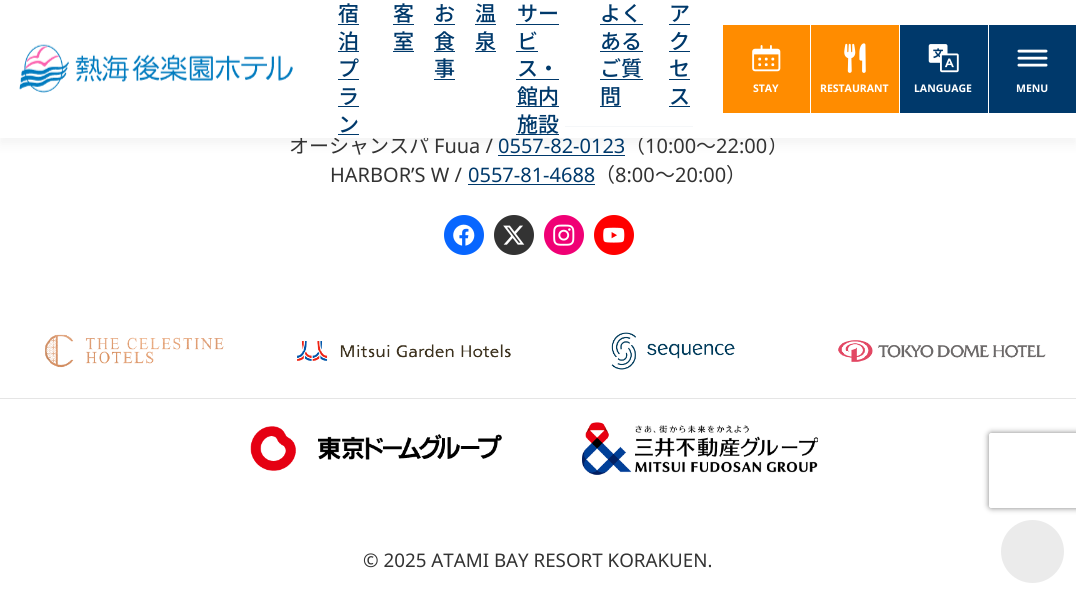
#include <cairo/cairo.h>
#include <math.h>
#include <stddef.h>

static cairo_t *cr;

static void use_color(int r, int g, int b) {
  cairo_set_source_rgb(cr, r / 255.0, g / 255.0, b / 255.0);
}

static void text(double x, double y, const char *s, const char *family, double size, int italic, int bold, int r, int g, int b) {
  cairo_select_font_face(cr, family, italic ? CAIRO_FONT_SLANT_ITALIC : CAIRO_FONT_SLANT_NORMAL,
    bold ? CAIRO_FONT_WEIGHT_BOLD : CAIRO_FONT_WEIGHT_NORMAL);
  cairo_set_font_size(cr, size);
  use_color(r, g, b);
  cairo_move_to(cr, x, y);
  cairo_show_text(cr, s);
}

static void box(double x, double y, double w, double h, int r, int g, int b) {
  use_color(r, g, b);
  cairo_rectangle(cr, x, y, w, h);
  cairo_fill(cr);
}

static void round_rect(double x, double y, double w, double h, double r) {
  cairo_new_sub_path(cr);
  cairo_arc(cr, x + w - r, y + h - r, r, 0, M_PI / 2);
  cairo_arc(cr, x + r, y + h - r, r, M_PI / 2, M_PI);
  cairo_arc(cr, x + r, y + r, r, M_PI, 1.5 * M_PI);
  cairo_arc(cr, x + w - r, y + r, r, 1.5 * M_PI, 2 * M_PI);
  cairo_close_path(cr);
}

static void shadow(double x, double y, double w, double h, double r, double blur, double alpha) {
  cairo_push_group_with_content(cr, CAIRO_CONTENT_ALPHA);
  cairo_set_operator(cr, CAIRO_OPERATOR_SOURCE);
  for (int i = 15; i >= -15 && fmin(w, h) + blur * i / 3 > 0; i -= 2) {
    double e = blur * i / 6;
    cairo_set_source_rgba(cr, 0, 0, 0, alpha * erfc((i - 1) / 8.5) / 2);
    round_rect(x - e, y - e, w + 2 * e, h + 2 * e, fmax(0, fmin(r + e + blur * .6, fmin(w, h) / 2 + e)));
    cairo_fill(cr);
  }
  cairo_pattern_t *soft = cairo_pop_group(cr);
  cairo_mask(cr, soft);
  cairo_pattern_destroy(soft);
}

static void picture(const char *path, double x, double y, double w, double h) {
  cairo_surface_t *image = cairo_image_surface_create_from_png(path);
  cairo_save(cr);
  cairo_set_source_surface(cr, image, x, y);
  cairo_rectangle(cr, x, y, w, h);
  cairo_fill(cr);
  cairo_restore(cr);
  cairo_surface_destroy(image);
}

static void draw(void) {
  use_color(255, 255, 255);
  cairo_paint(cr);
  box(565, 126, 128, 1, 0, 57, 107);
  box(498, 155, 127, 1, 0, 57, 107);
  cairo_save(cr);
  cairo_set_fill_rule(cr, CAIRO_FILL_RULE_EVEN_ODD);
  cairo_new_path(cr);
  cairo_move_to(cr, 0, 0);
  cairo_line_to(cr, 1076, 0);
  cairo_line_to(cr, 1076, 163);
  cairo_line_to(cr, 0, 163);
  cairo_close_path(cr);
  cairo_move_to(cr, 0, -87);
  cairo_line_to(cr, 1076, -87);
  cairo_line_to(cr, 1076, 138);
  cairo_line_to(cr, 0, 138);
  cairo_close_path(cr);
  cairo_clip(cr);
  use_color(0, 0, 0);
  shadow(0, -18, 1076, 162, 0, 6, 0.05);
  cairo_restore(cr);
  picture("img_01.png", 19, 44, 292, 68);
  box(338, 24, 21, 1, 0, 57, 107);
  box(338, 51, 21, 1, 0, 57, 107);
  box(338, 79, 21, 1, 0, 57, 107);
  box(338, 106, 21, 1, 0, 57, 107);
  box(393, 24, 21, 1, 0, 57, 107);
  box(393, 51, 21, 1, 0, 57, 107);
  box(434, 24, 21, 1, 0, 57, 107);
  box(434, 51, 21, 1, 0, 57, 107);
  box(434, 79, 21, 1, 0, 57, 107);
  box(475, 24, 21, 1, 0, 57, 107);
  box(475, 51, 21, 1, 0, 57, 107);
  box(516, 24, 43, 1, 0, 57, 107);
  box(516, 51, 22, 1, 0, 57, 107);
  box(516, 79, 43, 1, 0, 57, 107);
  box(516, 106, 43, 1, 0, 57, 107);
  box(600, 24, 43, 1, 0, 57, 107);
  box(600, 51, 43, 1, 0, 57, 107);
  box(600, 79, 43, 1, 0, 57, 107);
  box(600, 106, 21, 1, 0, 57, 107);
  box(669, 24, 21, 1, 0, 57, 107);
  box(669, 51, 21, 1, 0, 57, 107);
  box(669, 79, 21, 1, 0, 57, 107);
  box(669, 106, 21, 1, 0, 57, 107);
  box(723, 25, 87, 88, 255, 140, 0);
  picture("img_02.png", 752, 45, 29, 27);
  box(811, 25, 88, 88, 255, 140, 0);
  picture("img_03.png", 844, 43, 22, 30);
  box(900, 25, 88, 88, 0, 57, 107);
  picture("img_04.png", 928, 44, 31, 29);
  box(989, 25, 87, 88, 0, 57, 107);
  picture("img_05.png", 1017, 49, 31, 18);
  box(468, 184, 127, 1, 0, 57, 107);
  use_color(8, 102, 255);
  cairo_arc(cr, 464, 235, 20, 0, 2 * M_PI);
  cairo_fill(cr);
  picture("img_06.png", 453, 224, 22, 22);
  use_color(51, 51, 51);
  cairo_arc(cr, 514, 235, 20, 0, 2 * M_PI);
  cairo_fill(cr);
  picture("img_07.png", 503, 225, 22, 20);
  use_color(240, 0, 117);
  cairo_arc(cr, 564, 235, 20, 0, 2 * M_PI);
  cairo_fill(cr);
  picture("img_08.png", 553, 224, 22, 22);
  use_color(255, 0, 0);
  cairo_arc(cr, 614, 235, 20, 0, 2 * M_PI);
  cairo_fill(cr);
  picture("img_09.png", 603, 227, 22, 16);
  picture("img_10.png", 45, 334, 179, 34);
  picture("img_11.png", 297, 341, 214, 20);
  picture("img_12.png", 611, 332, 124, 38);
  picture("img_13.png", 838, 340, 208, 22);
  box(0, 398, 1076, 1, 229, 229, 229);
  picture("img_14.png", 250, 426, 252, 45);
  picture("img_15.png", 582, 422, 236, 53);
  use_color(235, 235, 235);
  cairo_arc(cr, 1032.5, 551.5, 31.5, 0, 2 * M_PI);
  cairo_fill(cr);
  cairo_save(cr);
  cairo_set_fill_rule(cr, CAIRO_FILL_RULE_EVEN_ODD);
  cairo_new_path(cr);
  cairo_move_to(cr, 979, 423);
  cairo_line_to(cr, 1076, 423);
  cairo_line_to(cr, 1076, 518);
  cairo_line_to(cr, 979, 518);
  cairo_close_path(cr);
  cairo_move_to(cr, 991.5, 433);
  cairo_line_to(cr, 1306.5, 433);
  cairo_curve_to(cr, 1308, 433, 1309, 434, 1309, 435.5);
  cairo_line_to(cr, 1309, 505.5);
  cairo_curve_to(cr, 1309, 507, 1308, 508, 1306.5, 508);
  cairo_line_to(cr, 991.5, 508);
  cairo_curve_to(cr, 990, 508, 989, 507, 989, 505.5);
  cairo_line_to(cr, 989, 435.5);
  cairo_curve_to(cr, 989, 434, 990, 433, 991.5, 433);
  cairo_close_path(cr);
  cairo_clip(cr);
  use_color(128, 128, 128);
  shadow(989, 433, 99, 75, 2.5, 3, 1);
  cairo_restore(cr);
  text(338, 21, "宿", "Noto Sans JP Medium", 21, 0, 0, 0, 57, 107);
  text(338, 49, "泊", "Noto Sans JP Medium", 21, 0, 0, 0, 57, 107);
  text(338, 76, "プ", "Noto Sans JP Medium", 21, 0, 0, 0, 57, 107);
  text(338, 104, "ラ", "Noto Sans JP Medium", 21, 0, 0, 0, 57, 107);
  text(393, 21, "客", "Noto Sans JP Medium", 21, 0, 0, 0, 57, 107);
  text(393, 49, "室", "Noto Sans JP Medium", 21, 0, 0, 0, 57, 107);
  text(434, 21, "お", "Noto Sans JP Medium", 21, 0, 0, 0, 57, 107);
  text(434, 49, "食", "Noto Sans JP Medium", 21, 0, 0, 0, 57, 107);
  text(434, 76, "事", "Noto Sans JP Medium", 21, 0, 0, 0, 57, 107);
  text(475, 21, "温", "Noto Sans JP Medium", 21, 0, 0, 0, 57, 107);
  text(475, 49, "泉", "Noto Sans JP Medium", 21, 0, 0, 0, 57, 107);
  text(517, 21, "サー", "Noto Sans JP Medium", 21, 0, 0, 0, 57, 107);
  text(517, 49, "ビ", "Noto Sans JP Medium", 21, 0, 0, 0, 57, 107);
  text(517, 76, "ス・", "Noto Sans JP Medium", 21, 0, 0, 0, 57, 107);
  text(517, 104, "館内", "Noto Sans JP Medium", 21, 0, 0, 0, 57, 107);
  text(600, 21, "よく", "Noto Sans JP Medium", 21, 0, 0, 0, 57, 107);
  text(600, 49, "ある", "Noto Sans JP Medium", 21, 0, 0, 0, 57, 107);
  text(600, 76, "ご質", "Noto Sans JP Medium", 21, 0, 0, 0, 57, 107);
  text(600, 104, "問", "Noto Sans JP Medium", 21, 0, 0, 0, 57, 107);
  text(669, 21, "ア", "Noto Sans JP Medium", 21, 0, 0, 0, 57, 107);
  text(669, 49, "ク", "Noto Sans JP Medium", 21, 0, 0, 0, 57, 107);
  text(669, 76, "セ", "Noto Sans JP Medium", 21, 0, 0, 0, 57, 107);
  text(669, 104, "ス", "Noto Sans JP Medium", 21, 0, 0, 0, 57, 107);
  text(753, 92, "STAY", "Noto Sans", 10.5, 0, 1, 255, 255, 255);
  text(820, 92, "RESTAURANT", "Noto Sans", 10.5, 0, 1, 255, 255, 255);
  text(914, 92, "LANGUAGE", "Noto Sans", 10.5, 0, 1, 255, 255, 255);
  text(1016, 92, "MENU", "Noto Sans", 10.5, 0, 1, 255, 255, 255);
  text(289, 153, "オーシャンスパ", "Noto Sans JP", 20, 0, 0, 51, 51, 51);
  text(434, 153, "Fuua /", "Noto Sans", 20, 0, 0, 51, 51, 51);
  text(498, 153, "0557-82-0123", "Noto Sans", 20, 0, 0, 0, 57, 107);
  text(625, 153, "（", "Noto Sans JP", 20, 0, 0, 51, 51, 51);
  text(645, 153, "10:00", "Noto Sans", 20, 0, 0, 51, 51, 51);
  text(696, 153, "～", "Noto Sans JP", 20, 0, 0, 51, 51, 51);
  text(716, 153, "22:00", "Noto Sans", 20, 0, 0, 51, 51, 51);
  text(768, 153, "）", "Noto Sans JP", 20, 0, 0, 51, 51, 51);
  cairo_set_source_rgba(cr, 1, 1, 1, 0.96);
  cairo_rectangle(cr, 0, 126, 1076, 12);
  cairo_fill(cr);
  text(517, 132, "施設", "Noto Sans JP Medium", 21, 0, 0, 0, 57, 107);
  box(516, 134, 43, 1, 0, 57, 107);
  text(338, 132, "ン", "Noto Sans JP Medium", 21, 0, 0, 0, 57, 107);
  box(338, 134, 21, 1, 0, 57, 107);
  text(330, 182, "HARBOR’S W /", "Noto Sans", 20, 0, 0, 51, 51, 51);
  text(468, 182, "0557-81-4688", "Noto Sans", 20, 0, 0, 0, 57, 107);
  text(595, 182, "（", "Noto Sans JP", 20, 0, 0, 51, 51, 51);
  text(615, 182, "8:00", "Noto Sans", 20, 0, 0, 51, 51, 51);
  text(655, 182, "～", "Noto Sans JP", 20, 0, 0, 51, 51, 51);
  text(675, 182, "20:00", "Noto Sans", 20, 0, 0, 51, 51, 51);
  text(726, 182, "）", "Noto Sans JP", 20, 0, 0, 51, 51, 51);
  text(363, 567, "© 2025 ATAMI BAY RESORT KORAKUEN.", "Noto Sans", 18.75, 0, 0, 51, 51, 51);
}

int main(void) {
  cairo_surface_t *surface = cairo_image_surface_create(CAIRO_FORMAT_RGB24, 1076, 595);
  cr = cairo_create(surface);
  cairo_font_options_t *options = cairo_font_options_create();
  cairo_font_options_set_hint_metrics(options, CAIRO_HINT_METRICS_OFF);
  cairo_font_options_set_hint_style(options, CAIRO_HINT_STYLE_NONE);
  cairo_set_font_options(cr, options);
  cairo_set_miter_limit(cr, 4);
  draw();
  cairo_surface_write_to_png(surface, "out.png");
  cairo_font_options_destroy(options);
  cairo_destroy(cr);
  cairo_surface_destroy(surface);
  return 0;
}
